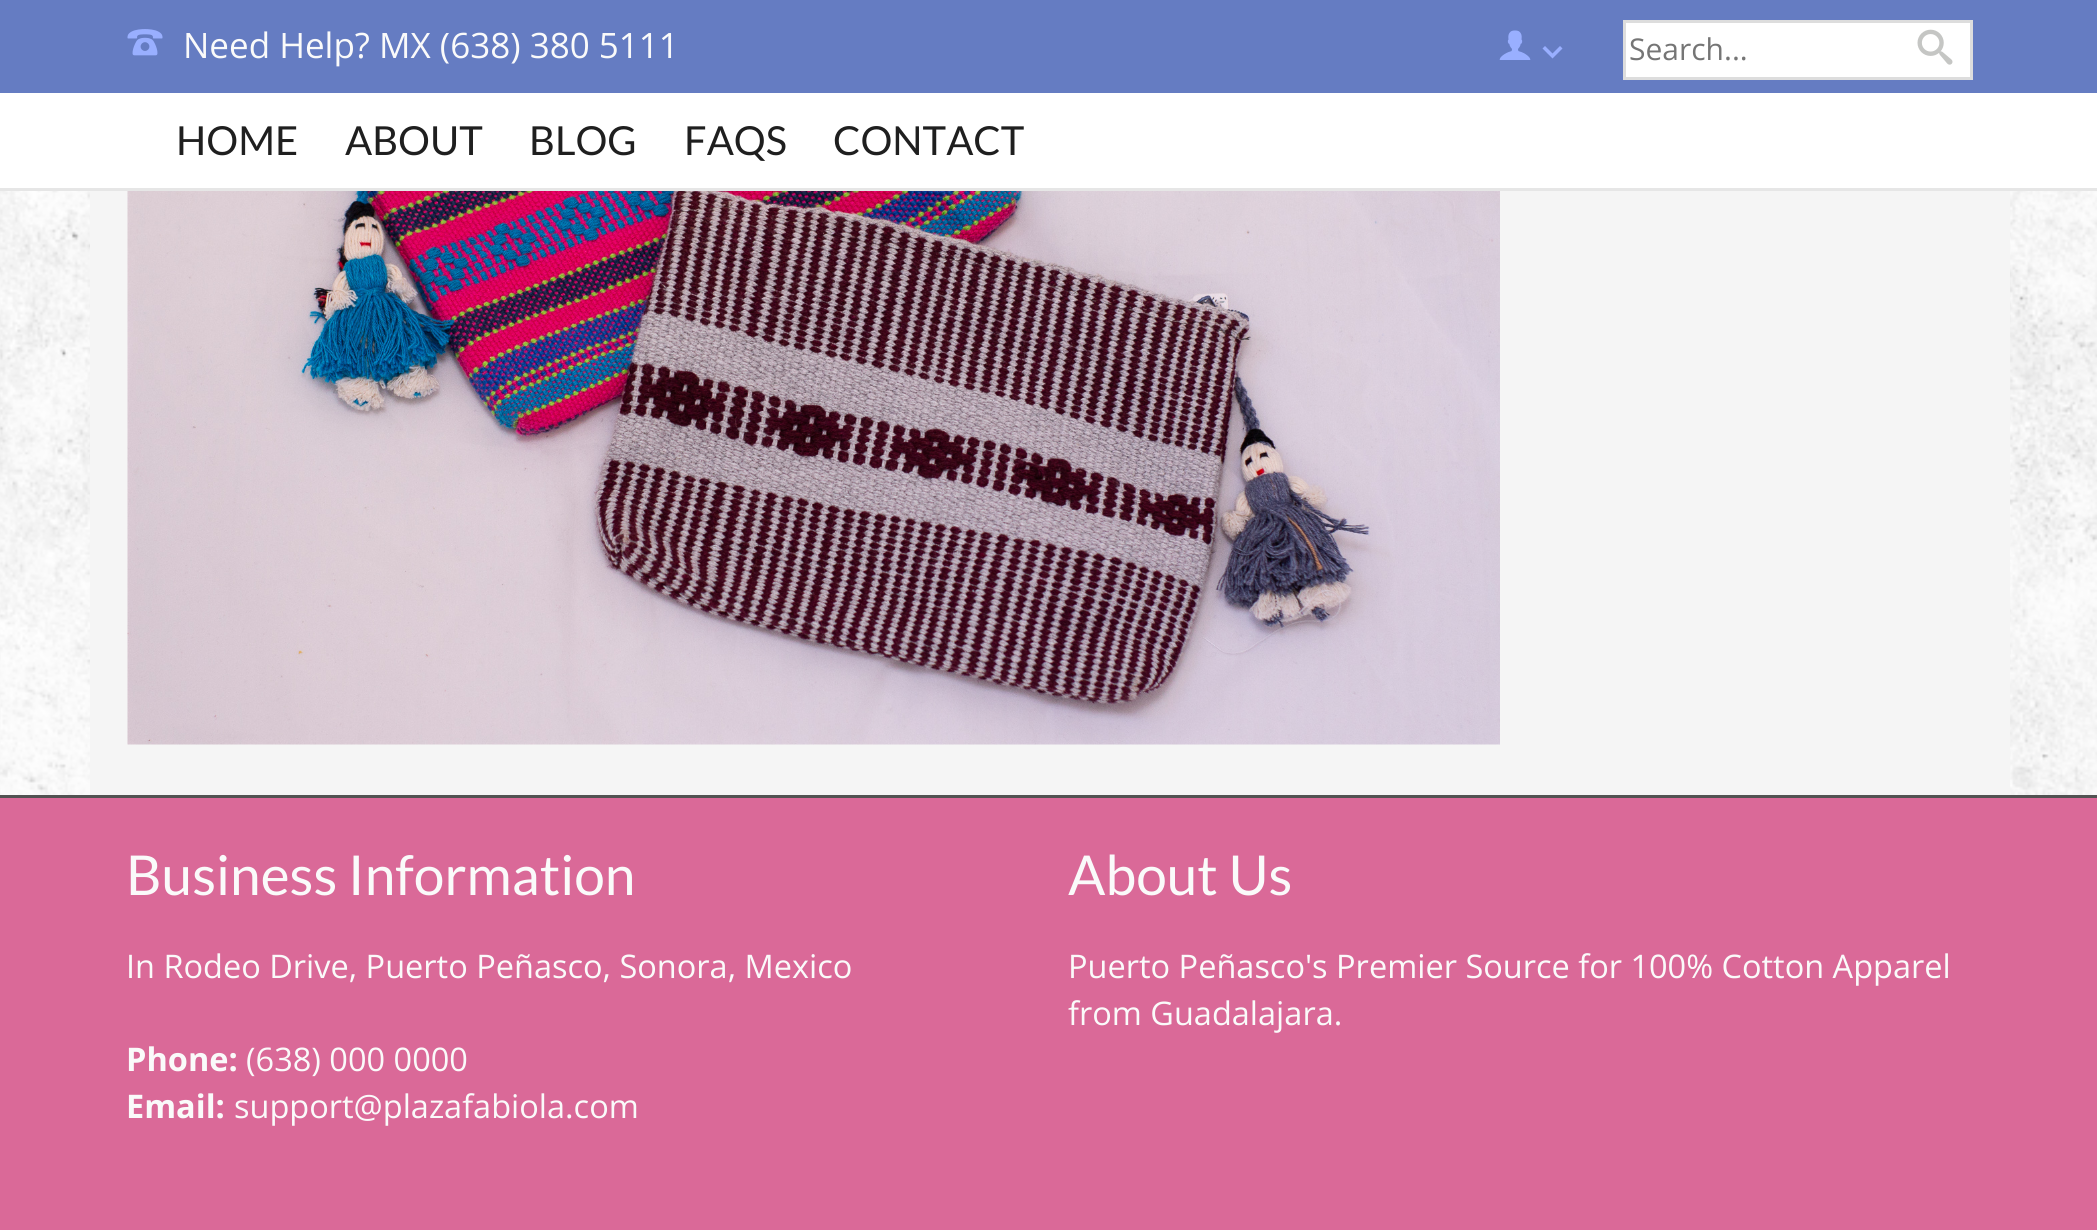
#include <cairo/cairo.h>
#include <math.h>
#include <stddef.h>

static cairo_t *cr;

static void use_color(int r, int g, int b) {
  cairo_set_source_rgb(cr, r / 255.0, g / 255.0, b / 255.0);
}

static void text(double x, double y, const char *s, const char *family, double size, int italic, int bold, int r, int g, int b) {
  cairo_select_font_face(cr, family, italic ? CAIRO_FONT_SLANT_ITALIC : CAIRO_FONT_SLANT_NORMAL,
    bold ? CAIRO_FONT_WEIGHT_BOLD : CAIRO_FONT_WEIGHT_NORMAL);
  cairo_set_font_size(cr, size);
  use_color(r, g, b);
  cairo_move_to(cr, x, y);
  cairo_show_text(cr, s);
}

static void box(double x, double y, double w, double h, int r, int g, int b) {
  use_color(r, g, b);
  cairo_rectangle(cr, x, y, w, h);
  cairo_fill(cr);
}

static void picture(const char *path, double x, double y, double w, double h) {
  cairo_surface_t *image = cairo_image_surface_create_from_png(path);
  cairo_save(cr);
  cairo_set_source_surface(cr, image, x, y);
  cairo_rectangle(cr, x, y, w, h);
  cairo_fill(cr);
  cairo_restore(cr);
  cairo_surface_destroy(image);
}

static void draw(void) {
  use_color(255, 255, 255);
  cairo_paint(cr);
  picture("img_01.png", 0, 191, 2097, 604);
  box(90, 191, 1920, 604, 245, 245, 245);
  box(0, 0, 2097, 93, 101, 124, 194);
  picture("img_02.png", 127, 29, 36, 27);
  picture("img_03.png", 1499, 30, 32, 30);
  use_color(153, 175, 255);
  cairo_new_path(cr);
  cairo_move_to(cr, 1542.5, 48.5);
  cairo_line_to(cr, 1545, 46);
  cairo_line_to(cr, 1552.5, 53.5);
  cairo_line_to(cr, 1560, 46);
  cairo_line_to(cr, 1562.5, 48.5);
  cairo_line_to(cr, 1552.5, 58.5);
  cairo_close_path(cr);
  cairo_fill(cr);
  use_color(255, 255, 255);
  cairo_rectangle(cr, 1624.5, 21.5, 347, 57);
  cairo_fill_preserve(cr);
  use_color(221, 221, 221);
  cairo_set_line_width(cr, 3);
  cairo_stroke(cr);
  picture("img_04.png", 1917, 29, 36, 36);
  box(0, 188, 2097, 3, 230, 230, 230);
  picture("img_05.png", 127, 191, 1373, 554);
  box(0, 798, 2097, 432, 218, 105, 152);
  box(0, 795, 2097, 3, 82, 82, 82);
  text(183, 58, "Need Help? MX (638) 380 5111", "Open Sans", 35, 0, 0, 250, 250, 250);
  text(1629, 60, "Search...", "Open Sans", 30, 0, 0, 117, 117, 117);
  text(176, 155, "HOME", "Lato", 40, 0, 0, 31, 31, 31);
  text(345, 155, "ABOUT", "Lato", 40, 0, 0, 31, 31, 31);
  text(529, 155, "BLOG", "Lato", 40, 0, 0, 31, 31, 31);
  text(684, 155, "FAQS", "Lato", 40, 0, 0, 31, 31, 31);
  text(833, 155, "CONTACT", "Lato", 40, 0, 0, 31, 31, 31);
  text(126, 895, "Business Information", "Lato", 55, 0, 0, 250, 250, 250);
  text(126, 978, "In Rodeo Drive, Puerto Peñasco, Sonora, Mexico", "Open Sans", 32.5, 0, 0, 250, 250, 250);
  text(126, 1071, "Phone:", "Open Sans", 32.5, 0, 1, 250, 250, 250);
  text(246, 1071, "(638) 000 0000", "Open Sans", 32.5, 0, 0, 250, 250, 250);
  text(126, 1118, "Email:", "Open Sans", 32.5, 0, 1, 250, 250, 250);
  text(234, 1118, "support@plazafabiola.com", "Open Sans", 32.5, 0, 0, 250, 250, 250);
  text(1068, 895, "About Us", "Lato", 55, 0, 0, 250, 250, 250);
  text(1068, 978, "Puerto Peñasco's Premier Source for 100% Cotton Apparel", "Open Sans", 32.5, 0, 0, 250, 250, 250);
  text(1068, 1025, "from Guadalajara.", "Open Sans", 32.5, 0, 0, 250, 250, 250);
}

int main(void) {
  cairo_surface_t *surface = cairo_image_surface_create(CAIRO_FORMAT_RGB24, 2097, 1230);
  cr = cairo_create(surface);
  cairo_font_options_t *options = cairo_font_options_create();
  cairo_font_options_set_hint_metrics(options, CAIRO_HINT_METRICS_OFF);
  cairo_font_options_set_hint_style(options, CAIRO_HINT_STYLE_NONE);
  cairo_set_font_options(cr, options);
  cairo_set_miter_limit(cr, 4);
  draw();
  cairo_surface_write_to_png(surface, "out.png");
  cairo_font_options_destroy(options);
  cairo_destroy(cr);
  cairo_surface_destroy(surface);
  return 0;
}
